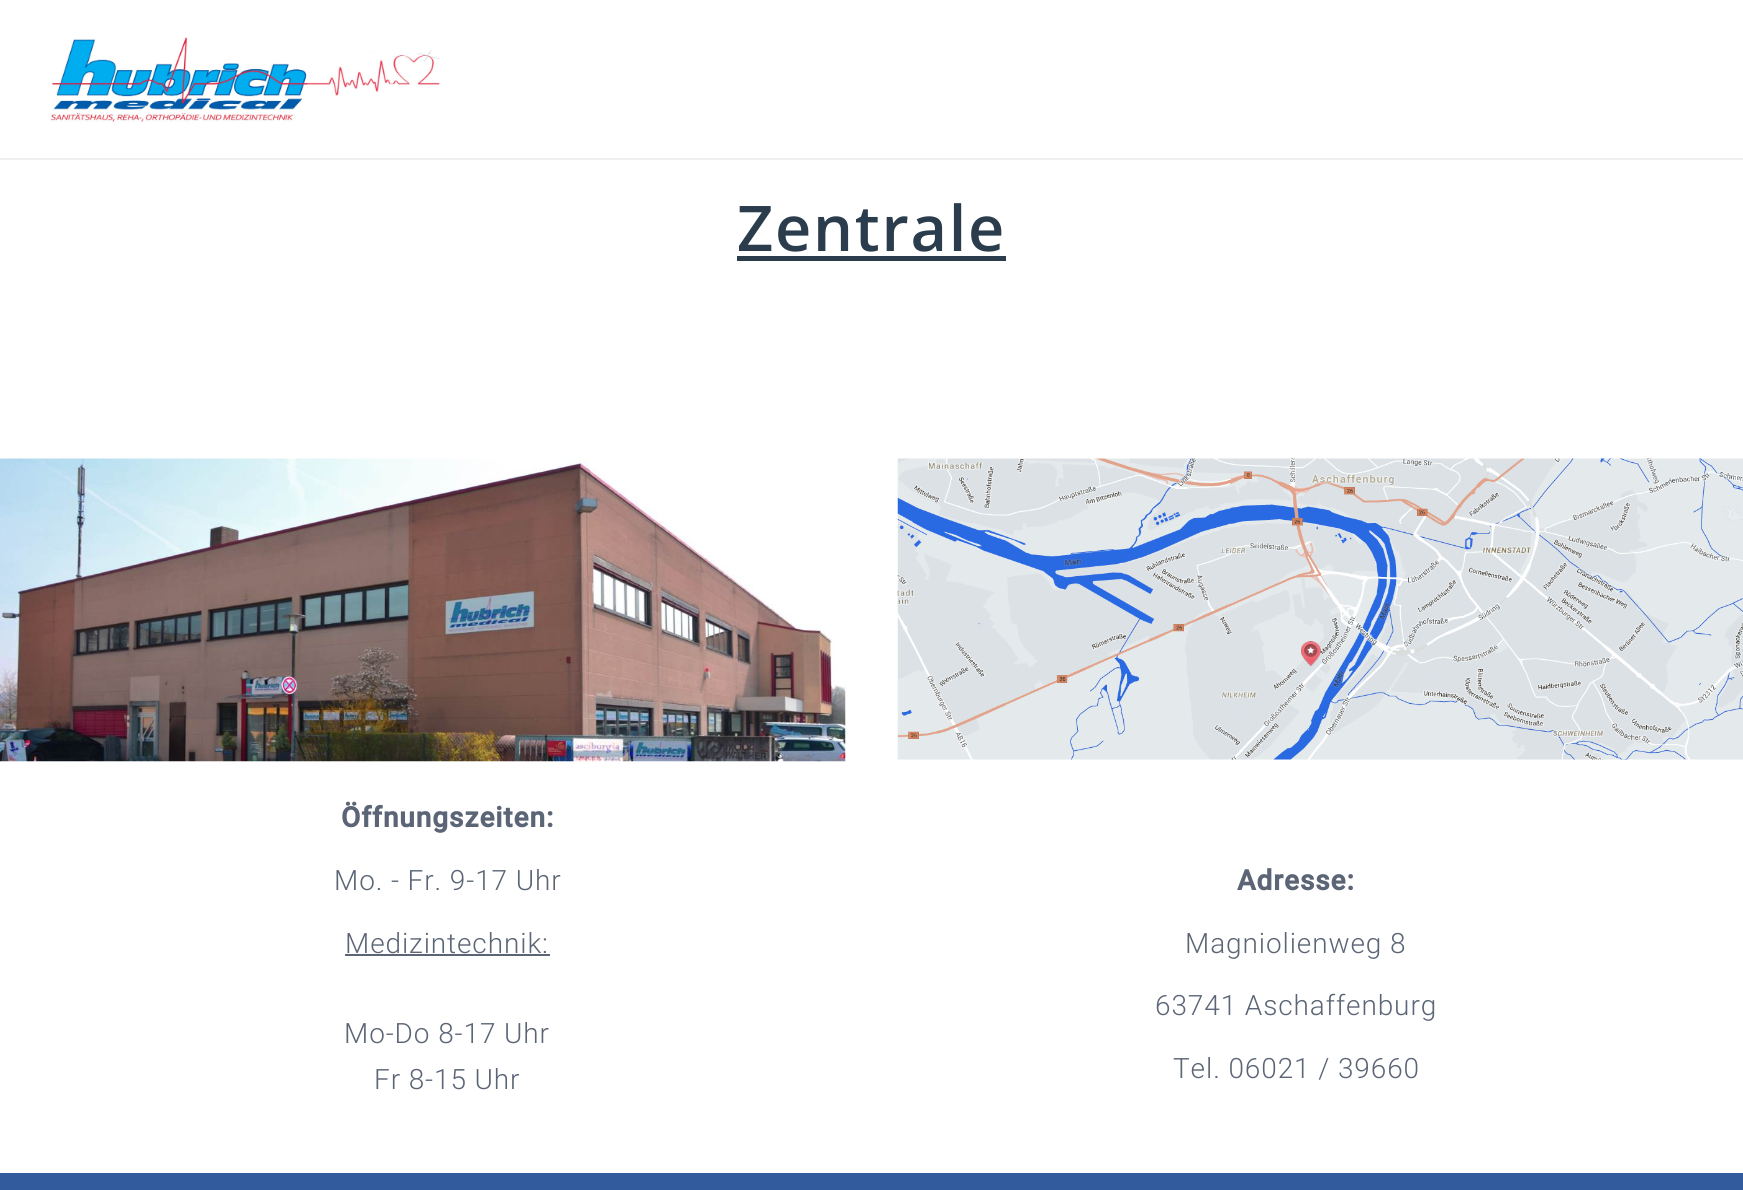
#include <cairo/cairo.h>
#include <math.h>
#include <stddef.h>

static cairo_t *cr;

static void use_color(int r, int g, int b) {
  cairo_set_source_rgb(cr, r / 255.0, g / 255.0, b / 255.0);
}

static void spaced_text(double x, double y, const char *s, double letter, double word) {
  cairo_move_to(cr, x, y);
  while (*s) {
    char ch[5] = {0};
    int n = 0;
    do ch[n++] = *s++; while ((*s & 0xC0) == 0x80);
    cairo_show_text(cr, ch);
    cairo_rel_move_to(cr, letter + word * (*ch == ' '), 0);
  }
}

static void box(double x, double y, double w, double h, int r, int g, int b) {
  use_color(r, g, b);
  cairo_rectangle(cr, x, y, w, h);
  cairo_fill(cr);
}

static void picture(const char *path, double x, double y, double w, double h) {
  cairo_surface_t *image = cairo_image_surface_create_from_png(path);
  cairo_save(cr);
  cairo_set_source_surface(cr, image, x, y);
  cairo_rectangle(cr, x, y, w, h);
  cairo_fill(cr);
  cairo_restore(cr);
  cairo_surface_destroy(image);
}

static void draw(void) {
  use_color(255, 255, 255);
  cairo_paint(cr);
  box(0, 158, 1743, 2, 240, 240, 240);
  picture("img_01.png", 49, 37, 391, 86);
  box(737, 256, 269, 5, 43, 60, 77);
  picture("img_02.png", 0, 458, 846, 304);
  picture("img_03.png", 897, 458, 846, 302);
  box(345, 954, 205, 2, 91, 101, 117);
  box(0, 1173, 1743, 17, 49, 91, 157);
  cairo_select_font_face(cr, "Open Sans SemiBold", CAIRO_FONT_SLANT_NORMAL, CAIRO_FONT_WEIGHT_NORMAL);
  cairo_set_font_size(cr, 63);
  use_color(43, 60, 77);
  spaced_text(737, 251, "Zentrale", 1.75, 0);
  cairo_select_font_face(cr, "Roboto", CAIRO_FONT_SLANT_NORMAL, CAIRO_FONT_WEIGHT_BOLD);
  cairo_set_font_size(cr, 28);
  use_color(91, 101, 117);
  spaced_text(341, 827, "Öffnungszeiten:", 0.9, 0);
  cairo_select_font_face(cr, "Roboto Light", CAIRO_FONT_SLANT_NORMAL, CAIRO_FONT_WEIGHT_NORMAL);
  spaced_text(334, 890, "Mo. - Fr. 9-17 Uhr", 0.9, 0);
  spaced_text(345, 953, "Medizintechnik:", 0.9, 0);
  spaced_text(344, 1043, "Mo-Do 8-17 Uhr", 0.9, 0);
  spaced_text(374, 1089, "Fr 8-15 Uhr", 0.9, 0);
  cairo_select_font_face(cr, "Roboto", CAIRO_FONT_SLANT_NORMAL, CAIRO_FONT_WEIGHT_BOLD);
  spaced_text(1237, 890, "Adresse:", 0.9, 0);
  cairo_select_font_face(cr, "Roboto Light", CAIRO_FONT_SLANT_NORMAL, CAIRO_FONT_WEIGHT_NORMAL);
  spaced_text(1185, 953, "Magniolienweg 8", 0.9, 0);
  spaced_text(1155, 1015, "63741 Aschaffenburg", 0.9, 0);
  spaced_text(1173, 1078, "Tel. 06021 / 39660", 0.9, 0);
}

int main(void) {
  cairo_surface_t *surface = cairo_image_surface_create(CAIRO_FORMAT_RGB24, 1743, 1190);
  cr = cairo_create(surface);
  cairo_font_options_t *options = cairo_font_options_create();
  cairo_font_options_set_hint_metrics(options, CAIRO_HINT_METRICS_OFF);
  cairo_font_options_set_hint_style(options, CAIRO_HINT_STYLE_NONE);
  cairo_set_font_options(cr, options);
  cairo_set_miter_limit(cr, 4);
  draw();
  cairo_surface_write_to_png(surface, "out.png");
  cairo_font_options_destroy(options);
  cairo_destroy(cr);
  cairo_surface_destroy(surface);
  return 0;
}
